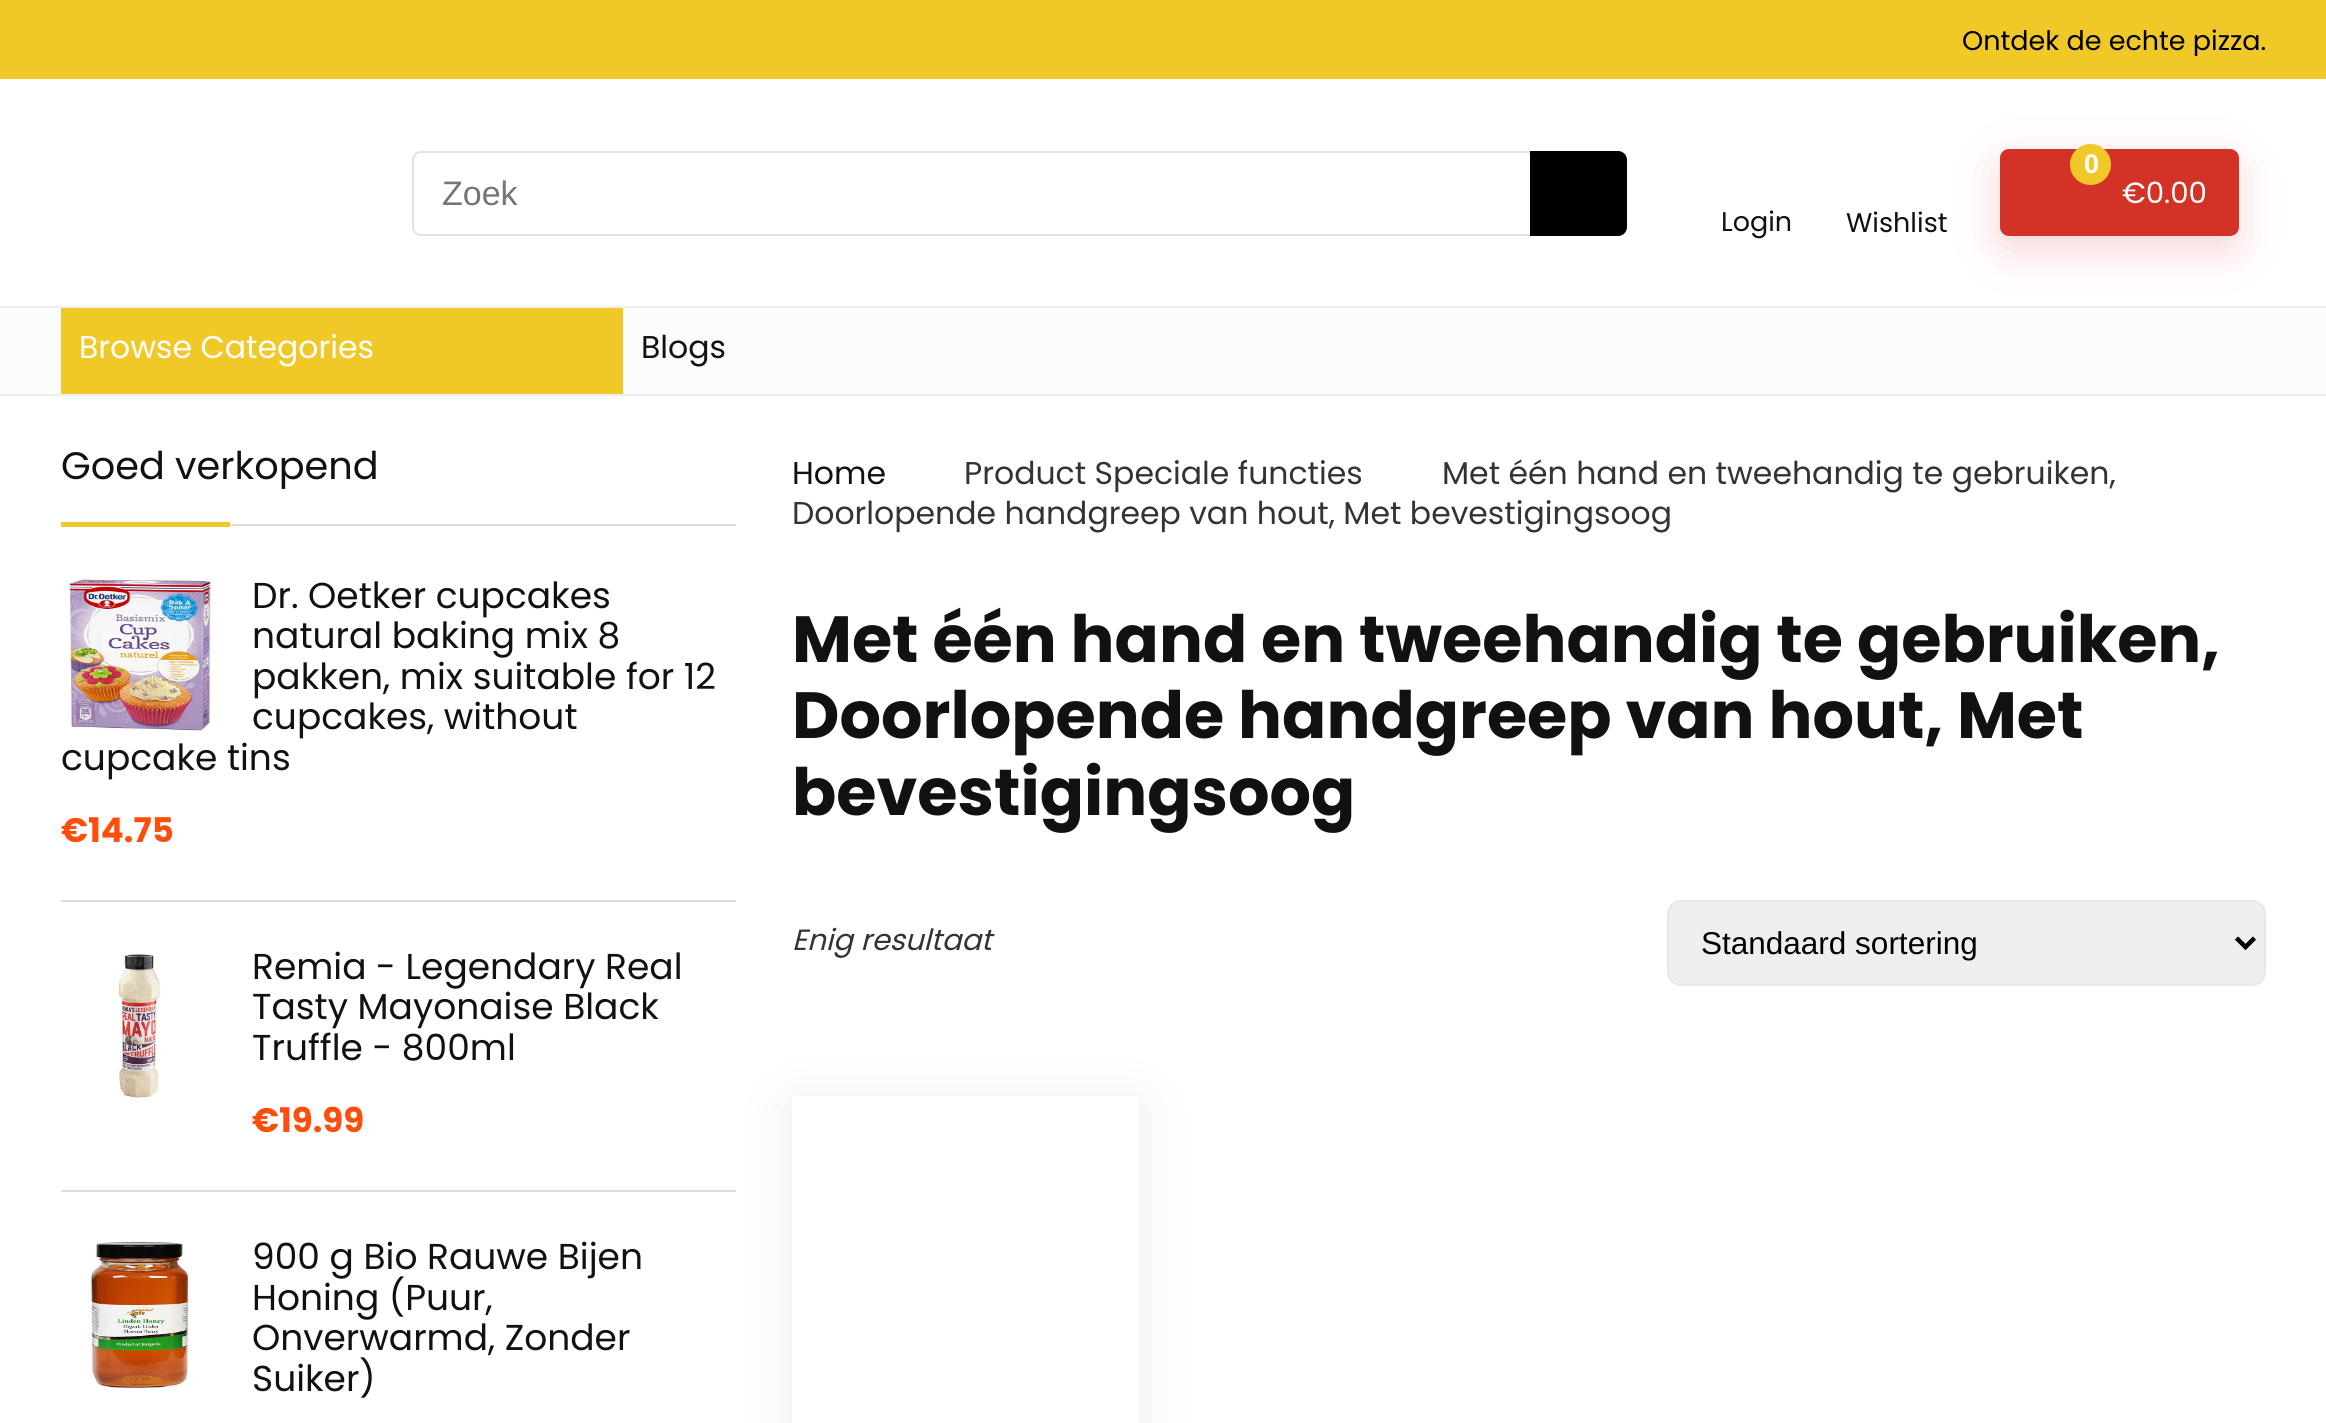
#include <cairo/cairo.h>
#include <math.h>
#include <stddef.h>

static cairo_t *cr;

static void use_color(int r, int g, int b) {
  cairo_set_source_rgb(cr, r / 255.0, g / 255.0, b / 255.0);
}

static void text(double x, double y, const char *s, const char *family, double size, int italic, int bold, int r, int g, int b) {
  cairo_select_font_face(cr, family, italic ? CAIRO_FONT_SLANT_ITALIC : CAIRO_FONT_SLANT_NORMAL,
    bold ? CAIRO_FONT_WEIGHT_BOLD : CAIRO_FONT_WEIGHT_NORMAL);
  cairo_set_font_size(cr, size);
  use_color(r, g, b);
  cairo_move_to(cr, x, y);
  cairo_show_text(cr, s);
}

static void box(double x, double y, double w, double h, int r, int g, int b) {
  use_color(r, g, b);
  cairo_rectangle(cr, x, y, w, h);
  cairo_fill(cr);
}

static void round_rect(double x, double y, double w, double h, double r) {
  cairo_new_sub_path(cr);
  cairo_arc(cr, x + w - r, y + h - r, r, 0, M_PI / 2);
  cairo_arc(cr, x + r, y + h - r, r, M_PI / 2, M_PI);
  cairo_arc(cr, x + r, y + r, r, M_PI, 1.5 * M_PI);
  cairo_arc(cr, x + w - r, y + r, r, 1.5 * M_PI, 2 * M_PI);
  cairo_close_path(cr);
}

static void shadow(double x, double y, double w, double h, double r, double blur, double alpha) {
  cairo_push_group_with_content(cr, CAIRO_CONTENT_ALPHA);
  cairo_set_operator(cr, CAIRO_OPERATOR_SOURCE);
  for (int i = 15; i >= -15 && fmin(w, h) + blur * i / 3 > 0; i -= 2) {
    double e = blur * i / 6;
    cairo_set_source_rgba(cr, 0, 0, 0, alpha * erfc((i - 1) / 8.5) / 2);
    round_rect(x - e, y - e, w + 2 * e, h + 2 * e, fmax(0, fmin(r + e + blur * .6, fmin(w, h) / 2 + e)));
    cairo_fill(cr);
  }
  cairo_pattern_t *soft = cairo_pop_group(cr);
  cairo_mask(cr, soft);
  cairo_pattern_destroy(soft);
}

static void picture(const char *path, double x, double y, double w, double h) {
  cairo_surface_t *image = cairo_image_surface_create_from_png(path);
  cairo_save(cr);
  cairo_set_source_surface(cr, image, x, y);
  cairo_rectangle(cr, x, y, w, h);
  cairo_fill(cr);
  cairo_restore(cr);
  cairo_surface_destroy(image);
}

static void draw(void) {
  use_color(255, 255, 255);
  cairo_paint(cr);
  box(0, 0, 2326, 79, 240, 201, 41);
  use_color(225, 225, 225);
  cairo_set_fill_rule(cr, CAIRO_FILL_RULE_EVEN_ODD);
  cairo_new_path(cr);
  cairo_move_to(cr, 421, 151);
  cairo_line_to(cr, 1530, 151);
  cairo_line_to(cr, 1530, 236);
  cairo_line_to(cr, 421, 236);
  cairo_curve_to(cr, 416, 236, 412, 232, 412, 227);
  cairo_line_to(cr, 412, 160);
  cairo_curve_to(cr, 412, 155, 416, 151, 421, 151);
  cairo_close_path(cr);
  cairo_move_to(cr, 421, 153);
  cairo_line_to(cr, 1530, 153);
  cairo_line_to(cr, 1530, 234);
  cairo_line_to(cr, 421, 234);
  cairo_curve_to(cr, 417, 234, 414, 231, 414, 227);
  cairo_line_to(cr, 414, 160);
  cairo_curve_to(cr, 414, 156, 417, 153, 421, 153);
  cairo_close_path(cr);
  cairo_fill(cr);
  use_color(0, 0, 0);
  cairo_new_path(cr);
  cairo_move_to(cr, 1530, 151);
  cairo_line_to(cr, 1618, 151);
  cairo_curve_to(cr, 1623, 151, 1627, 155, 1627, 160);
  cairo_line_to(cr, 1627, 227);
  cairo_curve_to(cr, 1627, 232, 1623, 236, 1618, 236);
  cairo_line_to(cr, 1530, 236);
  cairo_close_path(cr);
  cairo_fill(cr);
  box(0, 308, 2326, 86, 252, 252, 252);
  box(0, 306, 2326, 2, 238, 238, 238);
  use_color(211, 50, 38);
  shadow(1998, 162, 239, 88, 9, 21.5, 0.2);
  use_color(211, 50, 38);
  round_rect(2000, 149, 239, 87, 9);
  cairo_fill(cr);
  use_color(240, 201, 41);
  cairo_arc(cr, 2090.5, 164.5, 20.5, 0, 2 * M_PI);
  cairo_fill(cr);
  box(0, 394, 2326, 2, 238, 238, 238);
  box(61, 308, 562, 86, 240, 201, 41);
  box(230, 524, 506, 2, 221, 221, 221);
  box(61, 522, 169, 5, 240, 201, 41);
  box(61, 900, 675, 2, 221, 221, 221);
  picture("img_01.png", 68, 576, 146, 156);
  box(61, 1190, 675, 2, 221, 221, 221);
  picture("img_02.png", 117, 952, 45, 147);
  picture("img_03.png", 88, 1239, 105, 150);
  use_color(239, 239, 239);
  round_rect(1668, 901, 597, 84, 13);
  cairo_fill_preserve(cr);
  use_color(232, 232, 232);
  cairo_stroke(cr);
  cairo_new_path(cr);
  cairo_move_to(cr, 2236.5, 938);
  cairo_line_to(cr, 2245.5, 947);
  cairo_line_to(cr, 2254.5, 938);
  use_color(0, 0, 0);
  cairo_set_line_width(cr, 4.5);
  cairo_stroke(cr);
  use_color(188, 207, 219);
  shadow(792, 1105, 347, 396, 0, 26, 0.35);
  box(792, 1096, 347, 327, 255, 255, 255);
  box(792, 1094, 347, 2, 248, 248, 248);
  cairo_save(cr);
  cairo_set_fill_rule(cr, CAIRO_FILL_RULE_WINDING);
  cairo_rectangle(cr, 1962, 23, 304, 33);
  cairo_clip(cr);
  text(1962, 50, "Ontdek de echte pizza.", "Poppins", 27, 0, 0, 0, 0, 0);
  cairo_restore(cr);
  text(442, 205, "Zoek", "Liberation Sans", 34, 0, 0, 117, 117, 117);
  text(2084, 173, "0", "Liberation Sans", 27, 0, 1, 255, 255, 255);
  text(2122, 203, "€0.00", "Poppins", 29.25, 0, 0, 255, 255, 255);
  text(1721, 231, "Login", "Poppins", 27, 0, 0, 17, 17, 17);
  text(1846, 232, "Wishlist", "Poppins", 27, 0, 0, 17, 17, 17);
  text(79, 358, "Browse Categories", "Poppins", 31.5, 0, 0, 255, 255, 255);
  text(641, 358, "Blogs", "Poppins", 31.5, 0, 0, 17, 17, 17);
  text(61, 479, "Goed verkopend", "Poppins", 38.25, 0, 0, 17, 17, 17);
  text(252, 608, "Dr. Oetker cupcakes", "Poppins", 36, 0, 0, 17, 17, 17);
  text(252, 648, "natural baking mix 8", "Poppins", 36, 0, 0, 17, 17, 17);
  text(252, 689, "pakken, mix suitable for 12", "Poppins", 36, 0, 0, 17, 17, 17);
  text(252, 729, "cupcakes, without", "Poppins", 36, 0, 0, 17, 17, 17);
  text(61, 770, "cupcake tins", "Poppins", 36, 0, 0, 17, 17, 17);
  text(61, 842, "€14.75", "Poppins", 34, 0, 1, 255, 78, 12);
  text(252, 979, "Remia - Legendary Real", "Poppins", 36, 0, 0, 17, 17, 17);
  text(252, 1019, "Tasty Mayonaise Black", "Poppins", 36, 0, 0, 17, 17, 17);
  text(252, 1060, "Truffle - 800ml", "Poppins", 36, 0, 0, 17, 17, 17);
  text(252, 1132, "€19.99", "Poppins", 34, 0, 1, 255, 78, 12);
  text(252, 1269, "900 g Bio Rauwe Bijen", "Poppins", 36, 0, 0, 17, 17, 17);
  text(252, 1310, "Honing (Puur,", "Poppins", 36, 0, 0, 17, 17, 17);
  text(252, 1350, "Onverwarmd, Zonder", "Poppins", 36, 0, 0, 17, 17, 17);
  text(252, 1391, "Suiker)", "Poppins", 36, 0, 0, 17, 17, 17);
  text(792, 484, "Home", "Poppins", 31.5, 0, 0, 17, 17, 17);
  text(964, 484, "Product Speciale functies", "Poppins", 31.5, 0, 0, 51, 51, 51);
  text(1442, 484, "Met één hand en tweehandig te gebruiken,", "Poppins", 31.5, 0, 0, 51, 51, 51);
  text(792, 524, "Doorlopende handgreep van hout, Met bevestigingsoog", "Poppins", 31.5, 0, 0, 51, 51, 51);
  text(792, 662, "Met één hand en tweehandig te gebruiken,", "Poppins", 65.25, 0, 1, 17, 17, 17);
  text(792, 738, "Doorlopende handgreep van hout, Met", "Poppins", 65.25, 0, 1, 17, 17, 17);
  text(792, 815, "bevestigingsoog", "Poppins", 65.25, 0, 1, 17, 17, 17);
  text(792, 950, "Enig resultaat", "Poppins", 29.25, 1, 0, 51, 51, 51);
  text(1701, 954, "Standaard sortering", "Liberation Sans", 31.5, 0, 0, 0, 0, 0);
}

int main(void) {
  cairo_surface_t *surface = cairo_image_surface_create(CAIRO_FORMAT_RGB24, 2326, 1423);
  cr = cairo_create(surface);
  cairo_font_options_t *options = cairo_font_options_create();
  cairo_font_options_set_hint_metrics(options, CAIRO_HINT_METRICS_OFF);
  cairo_font_options_set_hint_style(options, CAIRO_HINT_STYLE_NONE);
  cairo_set_font_options(cr, options);
  cairo_set_miter_limit(cr, 4);
  draw();
  cairo_surface_write_to_png(surface, "out.png");
  cairo_font_options_destroy(options);
  cairo_destroy(cr);
  cairo_surface_destroy(surface);
  return 0;
}
